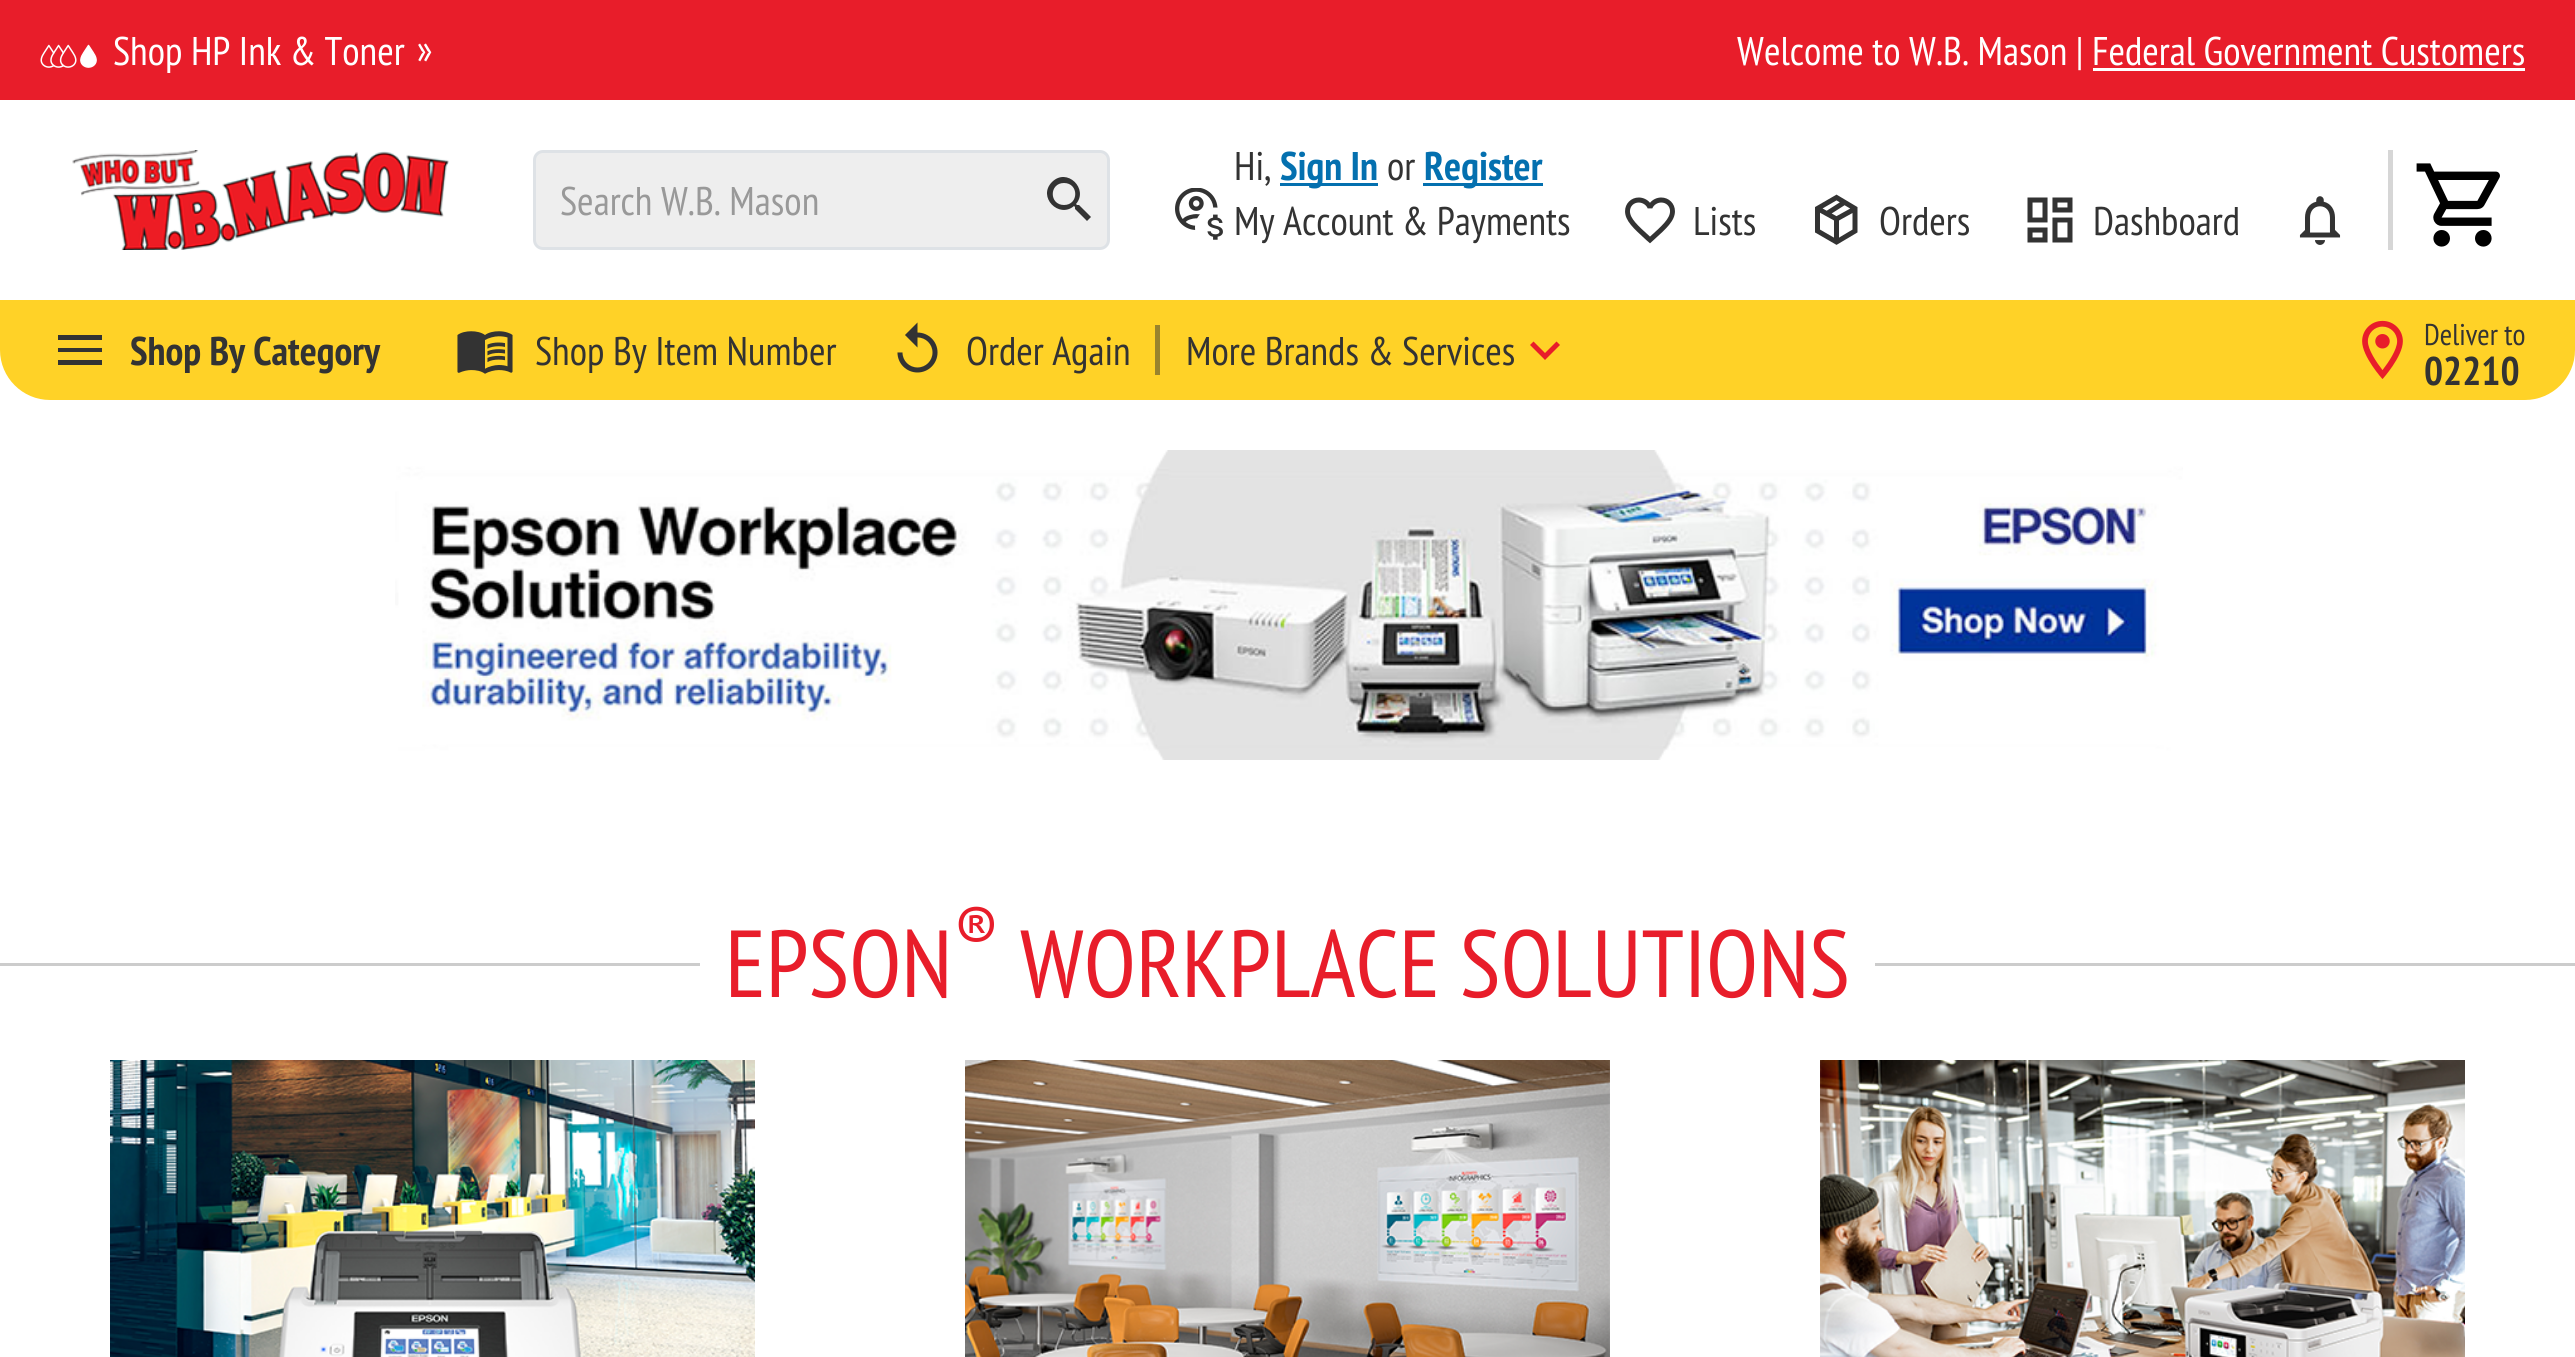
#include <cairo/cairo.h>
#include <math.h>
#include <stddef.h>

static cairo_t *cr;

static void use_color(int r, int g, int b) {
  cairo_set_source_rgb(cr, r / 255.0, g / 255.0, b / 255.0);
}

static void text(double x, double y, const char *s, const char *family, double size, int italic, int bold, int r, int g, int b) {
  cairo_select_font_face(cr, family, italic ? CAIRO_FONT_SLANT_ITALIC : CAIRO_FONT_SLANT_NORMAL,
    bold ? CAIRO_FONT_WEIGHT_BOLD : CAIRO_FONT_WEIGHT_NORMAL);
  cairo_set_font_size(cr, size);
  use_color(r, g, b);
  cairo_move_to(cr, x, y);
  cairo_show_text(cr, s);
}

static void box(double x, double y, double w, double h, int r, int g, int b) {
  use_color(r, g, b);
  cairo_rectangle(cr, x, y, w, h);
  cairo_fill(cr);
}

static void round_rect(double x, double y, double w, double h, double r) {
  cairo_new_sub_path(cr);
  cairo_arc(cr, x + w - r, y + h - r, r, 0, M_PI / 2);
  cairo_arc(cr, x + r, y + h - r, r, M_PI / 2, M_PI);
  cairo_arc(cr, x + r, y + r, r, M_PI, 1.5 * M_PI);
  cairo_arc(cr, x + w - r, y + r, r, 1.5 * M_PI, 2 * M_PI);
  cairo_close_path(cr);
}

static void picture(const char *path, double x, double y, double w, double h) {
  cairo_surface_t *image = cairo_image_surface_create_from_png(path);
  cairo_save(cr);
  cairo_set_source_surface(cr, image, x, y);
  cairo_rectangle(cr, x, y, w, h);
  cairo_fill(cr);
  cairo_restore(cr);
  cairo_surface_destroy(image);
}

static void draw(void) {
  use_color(255, 255, 255);
  cairo_paint(cr);
  box(0, 0, 2575, 100, 232, 29, 42);
  picture("img_01.png", 40, 44, 57, 24);
  box(2093, 68, 432, 3, 255, 255, 255);
  picture("img_02.png", 72, 150, 377, 100);
  use_color(238, 238, 238);
  round_rect(534.5, 151.5, 574, 97, 8.5);
  cairo_fill_preserve(cr);
  use_color(222, 226, 230);
  cairo_set_line_width(cr, 3);
  cairo_stroke(cr);
  use_color(51, 51, 51);
  cairo_new_path(cr);
  cairo_move_to(cr, 1079, 205);
  cairo_line_to(cr, 1077, 205);
  cairo_line_to(cr, 1076, 204);
  cairo_curve_to(cr, 1089, 189, 1067, 167, 1052, 182);
  cairo_curve_to(cr, 1037, 197, 1059, 219, 1074, 206);
  cairo_line_to(cr, 1075, 207);
  cairo_line_to(cr, 1075, 209);
  cairo_line_to(cr, 1087, 221);
  cairo_line_to(cr, 1091, 217);
  cairo_close_path(cr);
  cairo_move_to(cr, 1064, 205);
  cairo_curve_to(cr, 1049, 205, 1049, 183, 1064, 183);
  cairo_curve_to(cr, 1079, 183, 1079, 205, 1064, 205);
  cairo_close_path(cr);
  cairo_fill(cr);
  box(1280, 183, 98, 3, 4, 112, 175);
  box(1423, 183, 120, 3, 4, 112, 175);
  box(2388, 150, 5, 100, 214, 214, 214);
  picture("img_03.png", 1175, 188, 48, 52);
  picture("img_04.png", 1625, 197, 50, 47);
  cairo_new_path(cr);
  cairo_move_to(cr, 1836.5, 197.5);
  cairo_line_to(cr, 1855, 208.5);
  cairo_line_to(cr, 1855, 231);
  cairo_line_to(cr, 1836.5, 242);
  cairo_line_to(cr, 1817.5, 231);
  cairo_line_to(cr, 1817.5, 208.5);
  cairo_close_path(cr);
  cairo_move_to(cr, 1817.5, 208.5);
  cairo_line_to(cr, 1836.5, 219);
  cairo_line_to(cr, 1855.5, 208.5);
  cairo_move_to(cr, 1845, 202);
  cairo_line_to(cr, 1827, 213.5);
  use_color(51, 51, 51);
  cairo_set_line_width(cr, 5);
  cairo_stroke(cr);
  box(1834, 219, 5, 23, 51, 51, 51);
  picture("img_05.png", 2027, 197, 46, 46);
  picture("img_06.png", 2299, 196, 42, 49);
  picture("img_07.png", 2416, 163, 84, 84);
  use_color(255, 210, 39);
  cairo_new_path(cr);
  cairo_move_to(cr, 0, 300);
  cairo_line_to(cr, 2575, 300);
  cairo_line_to(cr, 2575, 350);
  cairo_curve_to(cr, 2575, 377.5, 2552.5, 400, 2525, 400);
  cairo_line_to(cr, 50, 400);
  cairo_curve_to(cr, 22.5, 400, 0, 377.5, 0, 350);
  cairo_close_path(cr);
  cairo_fill(cr);
  use_color(51, 51, 51);
  cairo_new_path(cr);
  cairo_move_to(cr, 58, 365);
  cairo_line_to(cr, 102, 365);
  cairo_line_to(cr, 102, 360);
  cairo_line_to(cr, 58, 360);
  cairo_close_path(cr);
  cairo_move_to(cr, 58, 352);
  cairo_line_to(cr, 102, 352);
  cairo_line_to(cr, 102, 348);
  cairo_line_to(cr, 58, 348);
  cairo_close_path(cr);
  cairo_move_to(cr, 58, 335);
  cairo_line_to(cr, 58, 340);
  cairo_line_to(cr, 102, 340);
  cairo_line_to(cr, 102, 335);
  cairo_close_path(cr);
  cairo_fill(cr);
  picture("img_08.png", 457, 331, 56, 43);
  picture("img_09.png", 897, 322, 41, 51);
  box(1155, 325, 5, 50, 153, 131, 45);
  use_color(232, 29, 42);
  cairo_new_path(cr);
  cairo_move_to(cr, 1533.5, 341.5);
  cairo_line_to(cr, 1545, 353);
  cairo_line_to(cr, 1556.5, 341.5);
  cairo_line_to(cr, 1560, 345);
  cairo_line_to(cr, 1545, 360);
  cairo_line_to(cr, 1530, 345);
  cairo_close_path(cr);
  cairo_fill(cr);
  picture("img_10.png", 2362, 320, 41, 59);
  picture("img_11.png", 395, 450, 1788, 310);
  box(0, 963, 2575, 3, 204, 204, 204);
  box(700, 963, 1175, 3, 255, 255, 255);
  picture("img_12.png", 110, 1060, 645, 297);
  picture("img_13.png", 965, 1060, 645, 297);
  picture("img_14.png", 1820, 1060, 645, 297);
  text(113, 65, "Shop HP Ink & Toner", "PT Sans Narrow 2", 40, 0, 0, 255, 255, 255);
  text(417, 63, "»", "PT Sans Narrow 2", 40, 0, 0, 255, 255, 255);
  text(1737, 65, "Welcome to W.B. Mason | Federal Government Customers", "PT Sans Narrow 2", 40, 0, 0, 255, 255, 255);
  text(560, 215, "Search W.B. Mason", "PT Sans Narrow 2", 40, 0, 0, 153, 153, 153);
  text(1234, 180, "Hi,", "PT Sans Narrow 2", 40, 0, 0, 51, 51, 51);
  text(1280, 180, "Sign In", "PT Sans Narrow", 40, 0, 1, 4, 112, 175);
  text(1387, 180, "or", "PT Sans Narrow 2", 40, 0, 0, 51, 51, 51);
  text(1424, 180, "Register", "PT Sans Narrow", 40, 0, 1, 4, 112, 175);
  text(1234, 235, "My Account & Payments", "PT Sans Narrow 2", 40, 0, 0, 51, 51, 51);
  text(1693, 235, "Lists", "PT Sans Narrow 2", 40, 0, 0, 51, 51, 51);
  text(1879, 235, "Orders", "PT Sans Narrow 2", 40, 0, 0, 51, 51, 51);
  text(2093, 235, "Dashboard", "PT Sans Narrow 2", 40, 0, 0, 51, 51, 51);
  text(130, 365, "Shop By Category", "PT Sans Narrow", 40, 0, 1, 51, 51, 51);
  text(535, 365, "Shop By Item Number", "PT Sans Narrow 2", 40, 0, 0, 51, 51, 51);
  text(966, 365, "Order Again", "PT Sans Narrow 2", 40, 0, 0, 51, 51, 51);
  text(1186, 365, "More Brands & Services", "PT Sans Narrow 2", 40, 0, 0, 51, 51, 51);
  text(2424, 345, "Deliver to", "PT Sans Narrow 2", 30, 0, 0, 51, 51, 51);
  text(2424, 385, "02210", "PT Sans Narrow", 40, 0, 1, 51, 51, 51);
  text(953, 963, "®", "PT Sans Narrow", 79, 0, 0, 232, 29, 42);
  text(725, 997, "EPSON", "PT Sans Narrow", 95, 0, 0, 232, 29, 42);
  text(1020, 997, "WORKPLACE SOLUTIONS", "PT Sans Narrow", 95, 0, 0, 232, 29, 42);
}

int main(void) {
  cairo_surface_t *surface = cairo_image_surface_create(CAIRO_FORMAT_RGB24, 2575, 1357);
  cr = cairo_create(surface);
  cairo_font_options_t *options = cairo_font_options_create();
  cairo_font_options_set_hint_metrics(options, CAIRO_HINT_METRICS_OFF);
  cairo_font_options_set_hint_style(options, CAIRO_HINT_STYLE_NONE);
  cairo_set_font_options(cr, options);
  cairo_set_miter_limit(cr, 4);
  draw();
  cairo_surface_write_to_png(surface, "out.png");
  cairo_font_options_destroy(options);
  cairo_destroy(cr);
  cairo_surface_destroy(surface);
  return 0;
}
